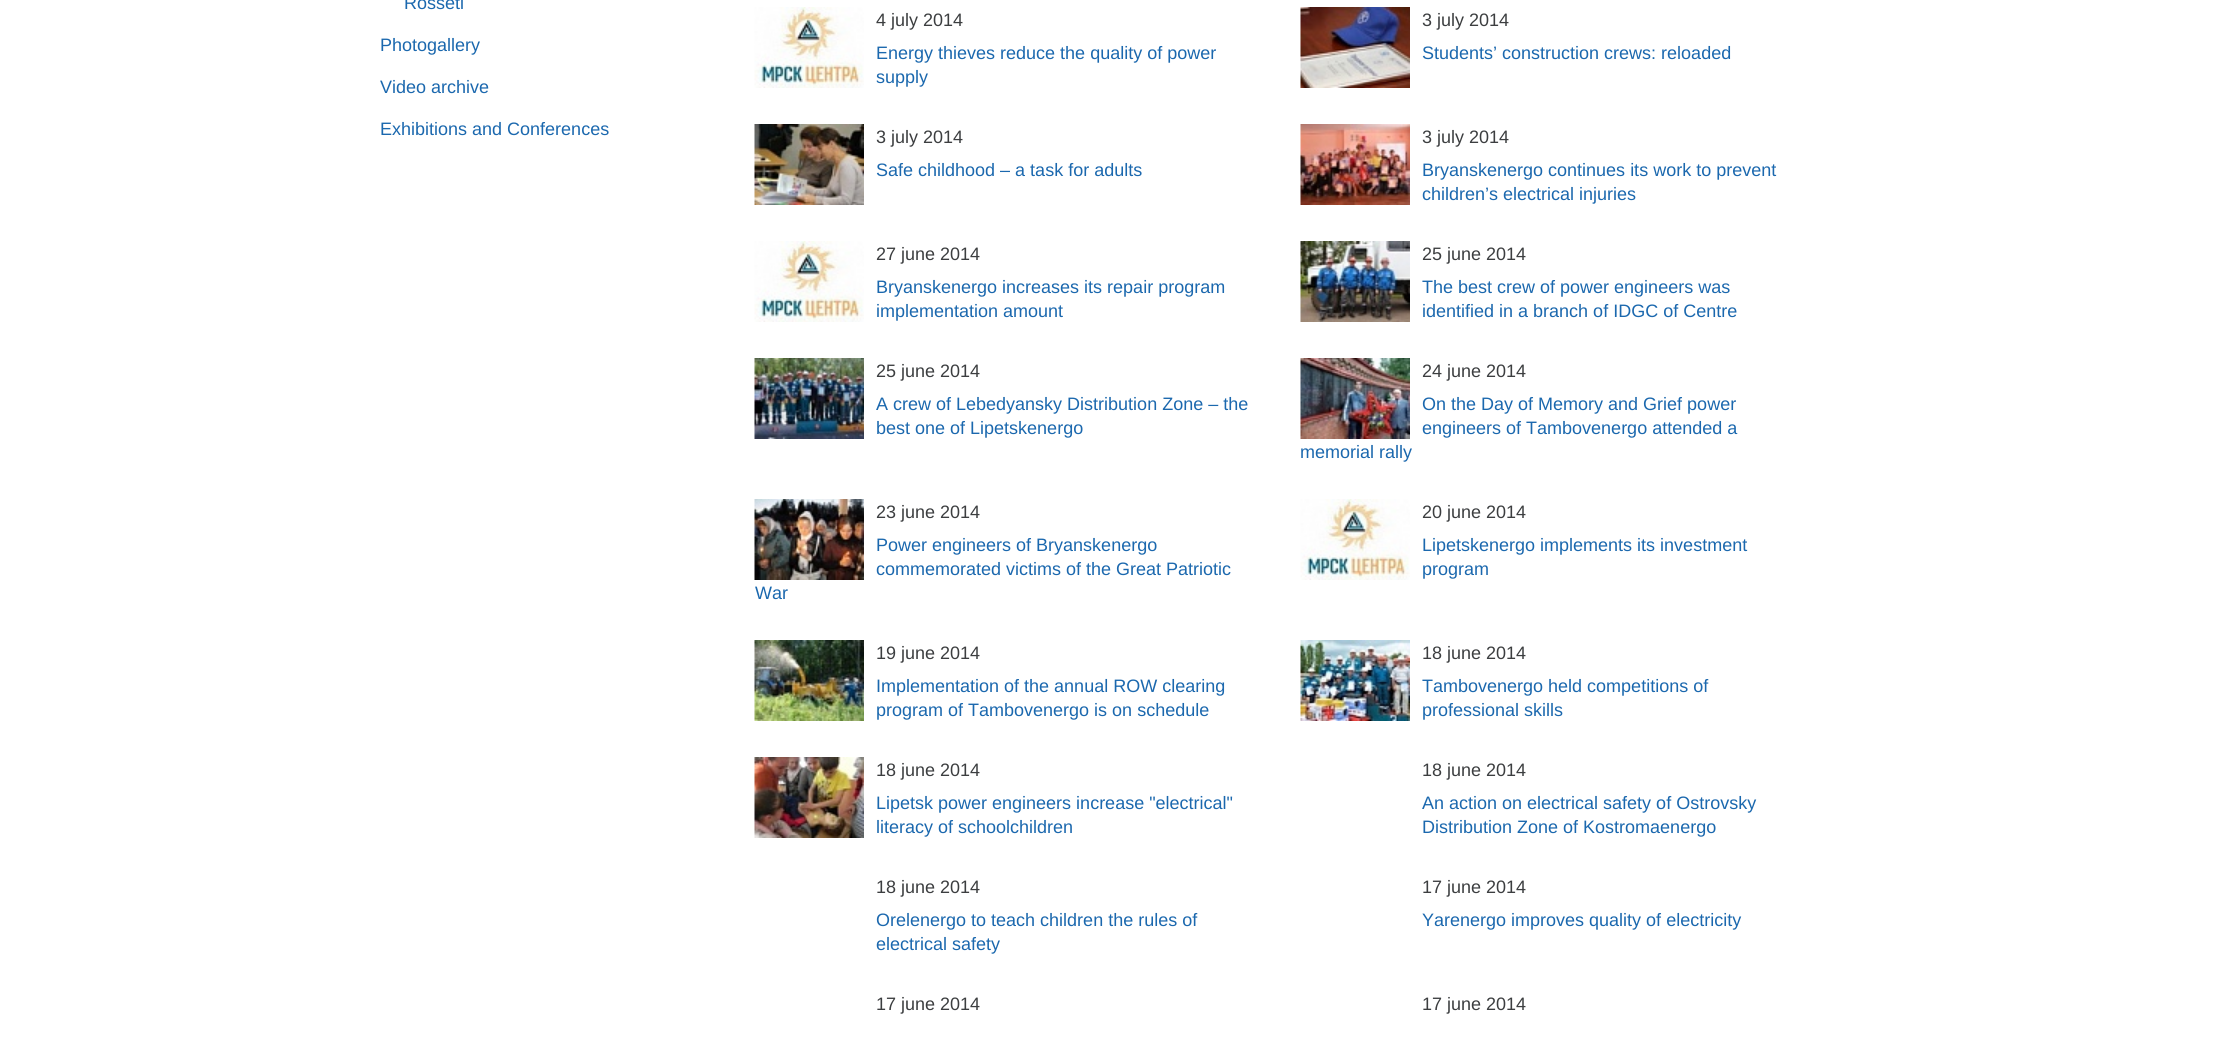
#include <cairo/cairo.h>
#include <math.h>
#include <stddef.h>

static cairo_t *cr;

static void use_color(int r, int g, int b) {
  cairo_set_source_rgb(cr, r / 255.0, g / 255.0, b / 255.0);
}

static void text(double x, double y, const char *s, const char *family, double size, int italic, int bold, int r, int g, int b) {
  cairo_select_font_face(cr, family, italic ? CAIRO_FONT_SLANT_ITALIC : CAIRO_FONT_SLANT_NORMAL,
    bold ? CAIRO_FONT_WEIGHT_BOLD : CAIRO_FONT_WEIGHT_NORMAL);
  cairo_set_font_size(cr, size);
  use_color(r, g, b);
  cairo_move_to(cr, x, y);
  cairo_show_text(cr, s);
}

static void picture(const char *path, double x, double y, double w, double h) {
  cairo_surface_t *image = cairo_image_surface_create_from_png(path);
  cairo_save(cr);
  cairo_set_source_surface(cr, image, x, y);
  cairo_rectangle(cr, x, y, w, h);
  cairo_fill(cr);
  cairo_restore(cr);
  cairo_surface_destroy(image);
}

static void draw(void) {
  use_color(255, 255, 255);
  cairo_paint(cr);
  picture("img_01.png", 754, 7, 110, 81);
  picture("img_02.png", 1300, 7, 110, 81);
  picture("img_03.png", 754, 124, 110, 81);
  picture("img_04.png", 1300, 124, 110, 81);
  picture("img_01.png", 754, 241, 110, 81);
  picture("img_05.png", 1300, 241, 110, 81);
  picture("img_06.png", 754, 358, 110, 81);
  picture("img_07.png", 1300, 358, 110, 81);
  picture("img_08.png", 754, 499, 110, 81);
  picture("img_09.png", 1300, 499, 110, 81);
  picture("img_10.png", 754, 640, 110, 81);
  picture("img_11.png", 1300, 640, 110, 81);
  picture("img_12.png", 754, 757, 110, 81);
  text(404, 9, "Rosseti", "Liberation Sans", 18, 0, 0, 27, 104, 174);
  text(380, 51, "Photogallery", "Liberation Sans", 18, 0, 0, 27, 104, 174);
  text(380, 93, "Video archive", "Liberation Sans", 18, 0, 0, 27, 104, 174);
  text(380, 135, "Exhibitions and Conferences", "Liberation Sans", 18, 0, 0, 27, 104, 174);
  text(876, 26, "4 july 2014", "Liberation Sans", 18, 0, 0, 60, 62, 64);
  text(876, 59, "Energy thieves reduce the quality of power", "Liberation Sans", 18, 0, 0, 27, 104, 174);
  text(876, 83, "supply", "Liberation Sans", 18, 0, 0, 27, 104, 174);
  text(1422, 26, "3 july 2014", "Liberation Sans", 18, 0, 0, 60, 62, 64);
  text(1422, 59, "Students’ construction crews: reloaded", "Liberation Sans", 18, 0, 0, 27, 104, 174);
  text(876, 143, "3 july 2014", "Liberation Sans", 18, 0, 0, 60, 62, 64);
  text(876, 176, "Safe childhood – a task for adults", "Liberation Sans", 18, 0, 0, 27, 104, 174);
  text(1422, 143, "3 july 2014", "Liberation Sans", 18, 0, 0, 60, 62, 64);
  text(1422, 176, "Bryanskenergo continues its work to prevent", "Liberation Sans", 18, 0, 0, 27, 104, 174);
  text(1422, 200, "children’s electrical injuries", "Liberation Sans", 18, 0, 0, 27, 104, 174);
  text(876, 260, "27 june 2014", "Liberation Sans", 18, 0, 0, 60, 62, 64);
  text(876, 293, "Bryanskenergo increases its repair program", "Liberation Sans", 18, 0, 0, 27, 104, 174);
  text(876, 317, "implementation amount", "Liberation Sans", 18, 0, 0, 27, 104, 174);
  text(1422, 260, "25 june 2014", "Liberation Sans", 18, 0, 0, 60, 62, 64);
  text(1422, 293, "The best crew of power engineers was", "Liberation Sans", 18, 0, 0, 27, 104, 174);
  text(1422, 317, "identified in a branch of IDGC of Centre", "Liberation Sans", 18, 0, 0, 27, 104, 174);
  text(876, 377, "25 june 2014", "Liberation Sans", 18, 0, 0, 60, 62, 64);
  text(876, 410, "A crew of Lebedyansky Distribution Zone – the", "Liberation Sans", 18, 0, 0, 27, 104, 174);
  text(876, 434, "best one of Lipetskenergo", "Liberation Sans", 18, 0, 0, 27, 104, 174);
  text(1422, 377, "24 june 2014", "Liberation Sans", 18, 0, 0, 60, 62, 64);
  text(1422, 410, "On the Day of Memory and Grief power", "Liberation Sans", 18, 0, 0, 27, 104, 174);
  text(1422, 434, "engineers of Tambovenergo attended a", "Liberation Sans", 18, 0, 0, 27, 104, 174);
  text(1300, 458, "memorial rally", "Liberation Sans", 18, 0, 0, 27, 104, 174);
  text(876, 518, "23 june 2014", "Liberation Sans", 18, 0, 0, 60, 62, 64);
  text(876, 551, "Power engineers of Bryanskenergo", "Liberation Sans", 18, 0, 0, 27, 104, 174);
  text(876, 575, "commemorated victims of the Great Patriotic", "Liberation Sans", 18, 0, 0, 27, 104, 174);
  text(755, 599, "War", "Liberation Sans", 18, 0, 0, 27, 104, 174);
  text(1422, 518, "20 june 2014", "Liberation Sans", 18, 0, 0, 60, 62, 64);
  text(1422, 551, "Lipetskenergo implements its investment", "Liberation Sans", 18, 0, 0, 27, 104, 174);
  text(1422, 575, "program", "Liberation Sans", 18, 0, 0, 27, 104, 174);
  text(876, 659, "19 june 2014", "Liberation Sans", 18, 0, 0, 60, 62, 64);
  text(876, 692, "Implementation of the annual ROW clearing", "Liberation Sans", 18, 0, 0, 27, 104, 174);
  text(876, 716, "program of Tambovenergo is on schedule", "Liberation Sans", 18, 0, 0, 27, 104, 174);
  text(1422, 659, "18 june 2014", "Liberation Sans", 18, 0, 0, 60, 62, 64);
  text(1422, 692, "Tambovenergo held competitions of", "Liberation Sans", 18, 0, 0, 27, 104, 174);
  text(1422, 716, "professional skills", "Liberation Sans", 18, 0, 0, 27, 104, 174);
  text(876, 776, "18 june 2014", "Liberation Sans", 18, 0, 0, 60, 62, 64);
  text(876, 809, "Lipetsk power engineers increase \"electrical\"", "Liberation Sans", 18, 0, 0, 27, 104, 174);
  text(876, 833, "literacy of schoolchildren", "Liberation Sans", 18, 0, 0, 27, 104, 174);
  text(1422, 776, "18 june 2014", "Liberation Sans", 18, 0, 0, 60, 62, 64);
  text(1422, 809, "An action on electrical safety of Ostrovsky", "Liberation Sans", 18, 0, 0, 27, 104, 174);
  text(1422, 833, "Distribution Zone of Kostromaenergo", "Liberation Sans", 18, 0, 0, 27, 104, 174);
  text(876, 893, "18 june 2014", "Liberation Sans", 18, 0, 0, 60, 62, 64);
  text(876, 926, "Orelenergo to teach children the rules of", "Liberation Sans", 18, 0, 0, 27, 104, 174);
  text(876, 950, "electrical safety", "Liberation Sans", 18, 0, 0, 27, 104, 174);
  text(1422, 893, "17 june 2014", "Liberation Sans", 18, 0, 0, 60, 62, 64);
  text(1422, 926, "Yarenergo improves quality of electricity", "Liberation Sans", 18, 0, 0, 27, 104, 174);
  text(876, 1010, "17 june 2014", "Liberation Sans", 18, 0, 0, 60, 62, 64);
  text(1422, 1010, "17 june 2014", "Liberation Sans", 18, 0, 0, 60, 62, 64);
}

int main(void) {
  cairo_surface_t *surface = cairo_image_surface_create(CAIRO_FORMAT_RGB24, 2228, 1038);
  cr = cairo_create(surface);
  cairo_font_options_t *options = cairo_font_options_create();
  cairo_font_options_set_hint_metrics(options, CAIRO_HINT_METRICS_OFF);
  cairo_font_options_set_hint_style(options, CAIRO_HINT_STYLE_NONE);
  cairo_set_font_options(cr, options);
  cairo_set_miter_limit(cr, 4);
  draw();
  cairo_surface_write_to_png(surface, "out.png");
  cairo_font_options_destroy(options);
  cairo_destroy(cr);
  cairo_surface_destroy(surface);
  return 0;
}
